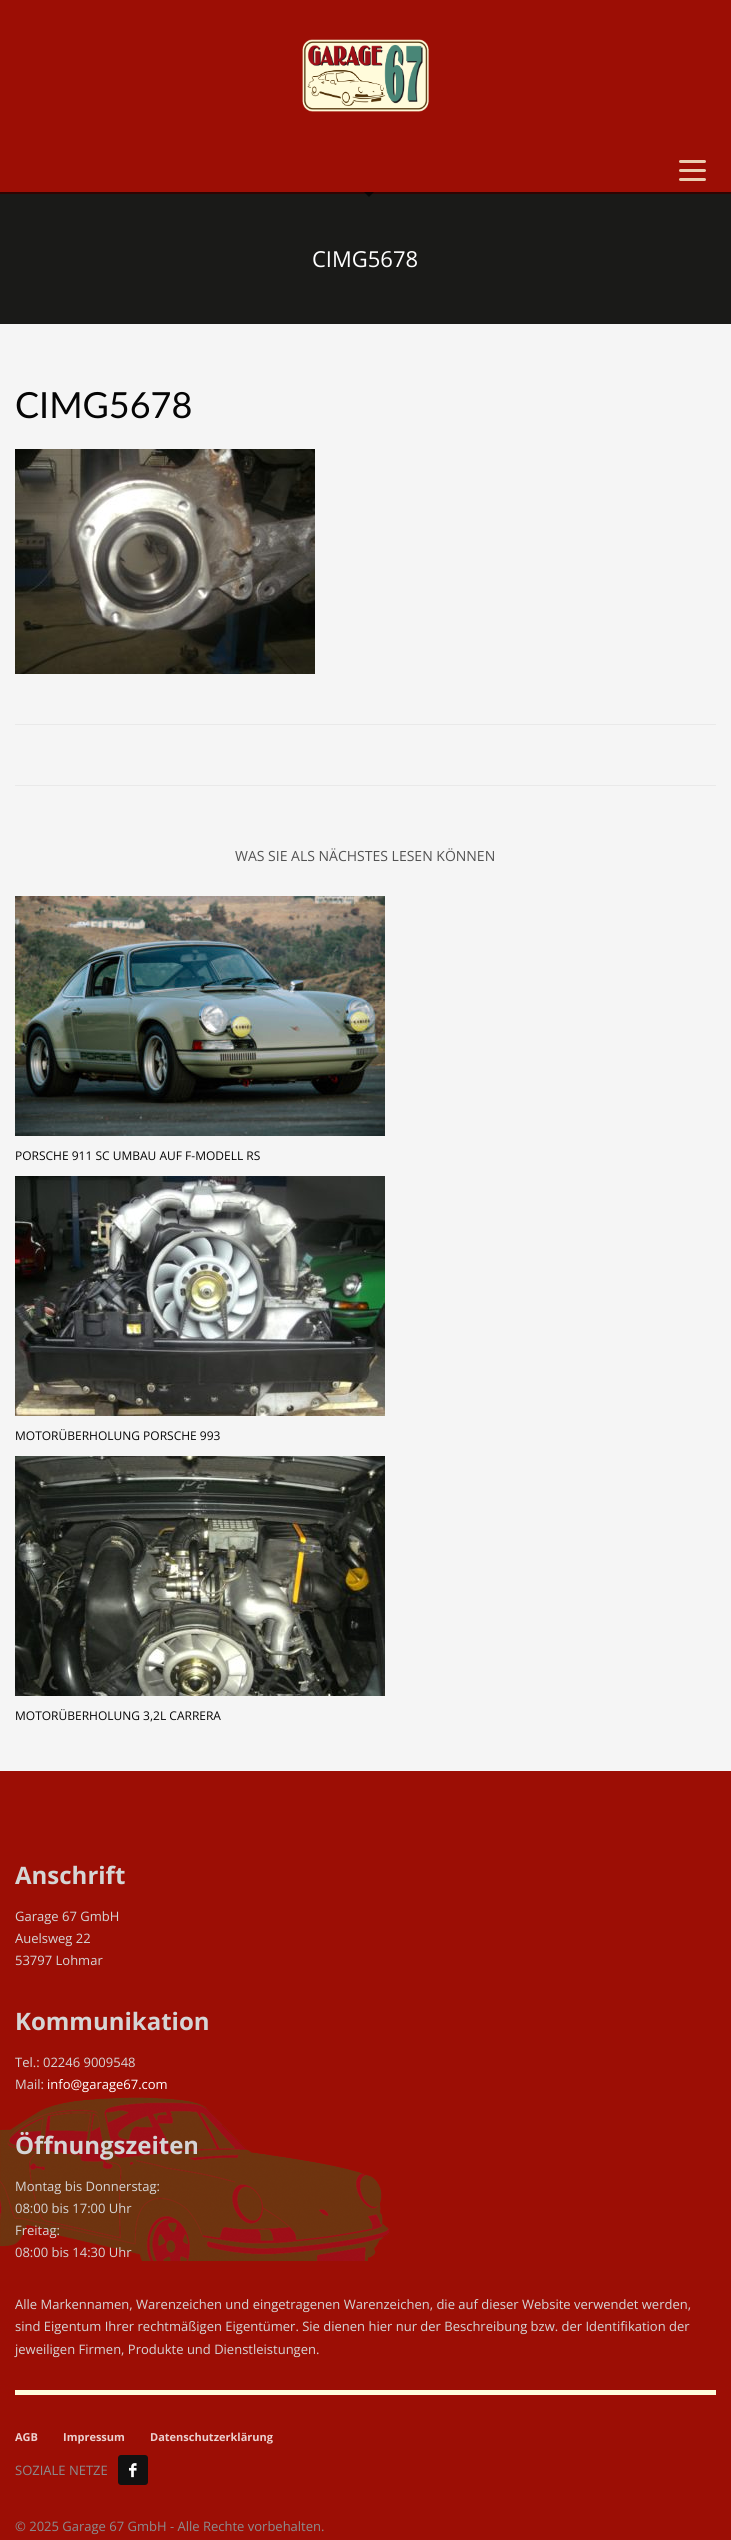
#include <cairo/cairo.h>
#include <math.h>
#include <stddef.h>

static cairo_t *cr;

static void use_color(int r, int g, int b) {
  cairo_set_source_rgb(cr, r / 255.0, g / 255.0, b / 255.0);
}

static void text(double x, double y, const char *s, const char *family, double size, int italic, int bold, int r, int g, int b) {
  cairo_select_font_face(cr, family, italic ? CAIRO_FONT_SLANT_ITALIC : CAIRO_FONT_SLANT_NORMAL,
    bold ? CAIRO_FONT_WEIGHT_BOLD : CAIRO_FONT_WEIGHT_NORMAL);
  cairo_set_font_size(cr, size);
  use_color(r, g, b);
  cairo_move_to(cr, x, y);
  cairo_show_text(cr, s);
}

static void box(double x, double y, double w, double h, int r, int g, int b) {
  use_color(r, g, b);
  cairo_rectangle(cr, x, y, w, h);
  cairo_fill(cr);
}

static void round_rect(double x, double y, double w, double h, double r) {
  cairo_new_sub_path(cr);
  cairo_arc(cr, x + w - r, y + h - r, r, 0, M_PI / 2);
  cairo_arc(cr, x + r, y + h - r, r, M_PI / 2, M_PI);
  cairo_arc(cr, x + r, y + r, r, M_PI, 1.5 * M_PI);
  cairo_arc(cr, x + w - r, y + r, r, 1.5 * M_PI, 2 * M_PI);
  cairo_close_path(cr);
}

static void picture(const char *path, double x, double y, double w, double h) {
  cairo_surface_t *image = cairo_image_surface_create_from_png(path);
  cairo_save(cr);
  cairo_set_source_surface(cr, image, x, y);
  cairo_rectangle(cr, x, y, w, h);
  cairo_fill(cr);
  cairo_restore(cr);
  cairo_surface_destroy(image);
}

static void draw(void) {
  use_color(245, 245, 245);
  cairo_paint(cr);
  box(0, 0, 731, 192, 156, 14, 5);
  box(0, 192, 731, 2, 47, 4, 2);
  picture("img_01.png", 302, 39, 127, 73);
  use_color(235, 204, 176);
  round_rect(679, 160, 27, 3, 1.5);
  cairo_fill(cr);
  round_rect(679, 169, 27, 3, 1.5);
  cairo_fill(cr);
  round_rect(679, 178, 27, 3, 1.5);
  cairo_fill(cr);
  box(0, 194, 731, 130, 26, 26, 24);
  cairo_set_source_rgba(cr, 0, 0, 0, 0.7);
  cairo_new_path(cr);
  cairo_move_to(cr, 364, 192);
  cairo_line_to(cr, 374, 192);
  cairo_line_to(cr, 369, 197);
  cairo_close_path(cr);
  cairo_fill(cr);
  picture("img_02.png", 15, 449, 300, 225);
  box(15, 724, 701, 1, 233, 233, 233);
  box(15, 785, 701, 1, 233, 233, 233);
  picture("img_03.png", 15, 896, 370, 240);
  picture("img_04.png", 15, 1176, 370, 240);
  picture("img_05.png", 15, 1456, 370, 240);
  box(0, 1771, 731, 769, 156, 14, 5);
  picture("img_06.png", 0, 2097, 390, 164);
  box(15, 2390, 701, 5, 255, 251, 219);
  use_color(17, 17, 17);
  round_rect(118, 2455, 30, 30, 3);
  cairo_fill(cr);
  picture("img_07.png", 129, 2463, 8, 15);
  text(312, 267, "CIMG5678", "Open Sans", 22, 0, 0, 255, 255, 255);
  text(15, 418, "CIMG5678", "Lato", 36, 0, 0, 5, 5, 5);
  text(235, 861, "WAS SIE ALS NÄCHSTES LESEN KÖNNEN", "Open Sans", 14, 0, 0, 83, 83, 83);
  text(15, 1160, "PORSCHE 911 SC UMBAU AUF F-MODELL RS", "Open Sans", 12, 0, 0, 5, 5, 5);
  text(15, 1440, "MOTORÜBERHOLUNG PORSCHE 993", "Open Sans", 12, 0, 0, 5, 5, 5);
  text(15, 1720, "MOTORÜBERHOLUNG 3,2L CARRERA", "Open Sans", 12, 0, 0, 5, 5, 5);
  text(15, 1884, "Anschrift", "Open Sans", 24, 0, 1, 213, 213, 213);
  text(15, 1921, "Garage 67 GmbH", "Open Sans", 13, 0, 0, 213, 213, 213);
  text(15, 1943, "Auelsweg 22", "Open Sans", 13, 0, 0, 213, 213, 213);
  text(15, 1965, "53797 Lohmar", "Open Sans", 13, 0, 0, 213, 213, 213);
  text(15, 2030, "Kommunikation", "Open Sans", 24, 0, 1, 213, 213, 213);
  text(15, 2067, "Tel.: 02246 9009548", "Open Sans", 13, 0, 0, 213, 213, 213);
  text(15, 2089, "Mail:", "Open Sans", 13, 0, 0, 213, 213, 213);
  text(47, 2089, "info@garage67.com", "Open Sans", 13, 0, 0, 255, 255, 255);
  text(15, 2154, "Öffnungszeiten", "Open Sans", 24, 0, 1, 213, 213, 213);
  text(15, 2191, "Montag bis Donnerstag:", "Open Sans", 13, 0, 0, 213, 213, 213);
  text(15, 2213, "08:00 bis 17:00 Uhr", "Open Sans", 13, 0, 0, 213, 213, 213);
  text(15, 2235, "Freitag:", "Open Sans", 13, 0, 0, 213, 213, 213);
  text(15, 2257, "08:00 bis 14:30 Uhr", "Open Sans", 13, 0, 0, 213, 213, 213);
  text(15, 2309, "Alle Markennamen, Warenzeichen und eingetragenen Warenzeichen, die auf dieser Website verwendet werden,", "Open Sans", 13, 0, 0, 213, 213, 213);
  text(15, 2331, "sind Eigentum Ihrer rechtmäßigen Eigentümer. Sie dienen hier nur der Beschreibung bzw. der Identifikation der", "Open Sans", 13, 0, 0, 213, 213, 213);
  text(15, 2354, "jeweiligen Firmen, Produkte und Dienstleistungen.", "Open Sans", 13, 0, 0, 213, 213, 213);
  text(15, 2441, "AGB", "Open Sans", 11, 0, 1, 235, 207, 205);
  text(63, 2441, "Impressum", "Open Sans", 11, 0, 1, 235, 207, 205);
  text(150, 2441, "Datenschutzerklärung", "Open Sans", 11, 0, 1, 235, 207, 205);
  text(15, 2475, "SOZIALE NETZE", "Open Sans", 13, 0, 0, 139, 140, 141);
  text(15, 2531, "© 2025 Garage 67 GmbH - Alle Rechte vorbehalten.", "Open Sans", 13, 0, 0, 139, 140, 141);
}

int main(void) {
  cairo_surface_t *surface = cairo_image_surface_create(CAIRO_FORMAT_RGB24, 731, 2540);
  cr = cairo_create(surface);
  cairo_font_options_t *options = cairo_font_options_create();
  cairo_font_options_set_hint_metrics(options, CAIRO_HINT_METRICS_OFF);
  cairo_font_options_set_hint_style(options, CAIRO_HINT_STYLE_NONE);
  cairo_set_font_options(cr, options);
  cairo_set_miter_limit(cr, 4);
  draw();
  cairo_surface_write_to_png(surface, "out.png");
  cairo_font_options_destroy(options);
  cairo_destroy(cr);
  cairo_surface_destroy(surface);
  return 0;
}
